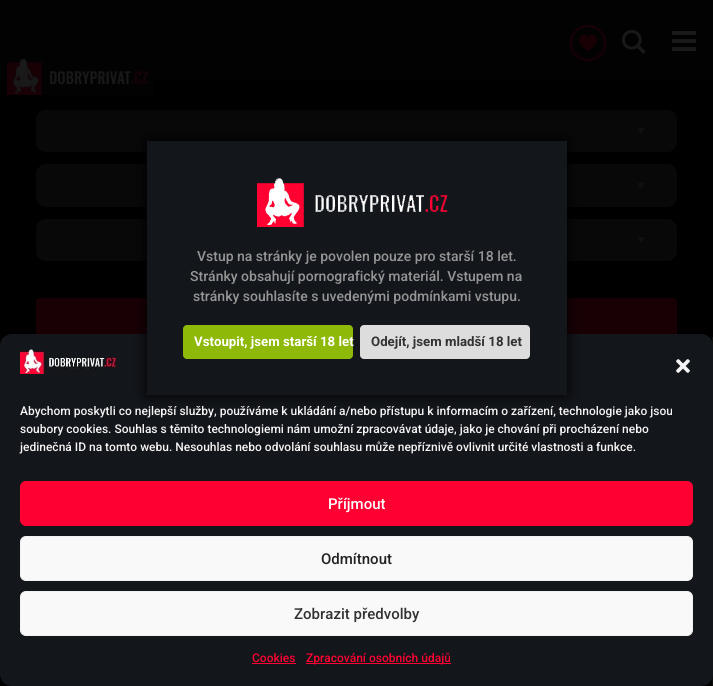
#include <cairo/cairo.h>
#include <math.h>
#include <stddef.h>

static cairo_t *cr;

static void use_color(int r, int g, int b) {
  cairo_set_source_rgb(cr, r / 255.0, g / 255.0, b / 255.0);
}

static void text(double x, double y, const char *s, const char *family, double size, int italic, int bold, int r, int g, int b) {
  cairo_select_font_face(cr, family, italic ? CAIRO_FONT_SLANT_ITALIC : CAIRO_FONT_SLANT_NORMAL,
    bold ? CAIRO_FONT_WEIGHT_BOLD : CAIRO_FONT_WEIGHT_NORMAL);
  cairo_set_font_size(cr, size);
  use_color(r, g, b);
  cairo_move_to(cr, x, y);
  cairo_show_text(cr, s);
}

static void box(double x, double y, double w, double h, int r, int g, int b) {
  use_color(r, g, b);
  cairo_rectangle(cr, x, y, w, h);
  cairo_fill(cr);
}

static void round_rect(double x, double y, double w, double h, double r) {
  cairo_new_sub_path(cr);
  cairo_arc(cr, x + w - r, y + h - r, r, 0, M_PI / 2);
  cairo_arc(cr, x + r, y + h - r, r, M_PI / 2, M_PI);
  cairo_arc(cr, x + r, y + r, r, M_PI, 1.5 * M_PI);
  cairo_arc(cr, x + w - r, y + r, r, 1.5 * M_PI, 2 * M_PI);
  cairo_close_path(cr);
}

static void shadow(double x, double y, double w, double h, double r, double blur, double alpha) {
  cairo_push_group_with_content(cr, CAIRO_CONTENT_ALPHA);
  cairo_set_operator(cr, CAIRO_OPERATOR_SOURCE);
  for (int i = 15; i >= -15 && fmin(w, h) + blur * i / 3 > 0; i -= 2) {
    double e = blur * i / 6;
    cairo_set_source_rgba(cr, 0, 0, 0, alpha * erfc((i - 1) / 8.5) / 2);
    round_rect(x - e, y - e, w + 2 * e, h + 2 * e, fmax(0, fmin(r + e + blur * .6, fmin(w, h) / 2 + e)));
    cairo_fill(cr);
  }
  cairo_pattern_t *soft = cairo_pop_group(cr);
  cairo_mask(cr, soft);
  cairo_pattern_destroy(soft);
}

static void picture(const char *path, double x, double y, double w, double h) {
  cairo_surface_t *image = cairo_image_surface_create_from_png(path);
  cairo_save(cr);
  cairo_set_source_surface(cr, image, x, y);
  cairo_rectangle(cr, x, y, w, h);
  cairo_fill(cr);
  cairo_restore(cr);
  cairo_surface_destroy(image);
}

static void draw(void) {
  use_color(255, 255, 255);
  cairo_paint(cr);
  box(0, 0, 713, 80, 2, 2, 3);
  use_color(25, 0, 5);
  cairo_new_path(cr);
  cairo_move_to(cr, 588, 37.5);
  cairo_curve_to(cr, 585, 29.5, 569.5, 39.5, 588, 51);
  cairo_curve_to(cr, 606.5, 39.5, 591, 29.5, 588, 37.5);
  cairo_close_path(cr);
  cairo_fill(cr);
  cairo_arc(cr, 588, 43, 17, 0, 2 * M_PI);
  cairo_stroke(cr);
  picture("img_01.png", 622, 30, 24, 24);
  picture("img_02.png", 672, 31, 24, 20);
  box(0, 80, 713, 257, 0, 0, 0);
  picture("img_03.png", 7, 58, 147, 37);
  use_color(8, 8, 8);
  round_rect(36, 110, 641, 42, 10);
  cairo_fill(cr);
  picture("img_04.png", 637, 128, 8, 6);
  round_rect(36, 164, 641, 43, 10);
  cairo_fill(cr);
  picture("img_04.png", 637, 183, 8, 6);
  round_rect(36, 219, 641, 42, 10);
  cairo_fill(cr);
  picture("img_04.png", 637, 237, 8, 6);
  use_color(25, 0, 5);
  round_rect(36, 298, 641, 39, 4);
  cairo_fill(cr);
  picture("img_05.png", 0, 337, 713, 349);
  use_color(19, 22, 27);
  round_rect(0, 334, 713, 352, 12);
  cairo_fill(cr);
  use_color(0, 0, 0);
  shadow(147, 141, 420, 254, 0, 7.5, 1);
  box(147, 141, 420, 254, 19, 22, 27);
  picture("img_06.png", 257, 178, 191, 49);
  use_color(142, 185, 8);
  round_rect(183, 325, 170, 34, 4);
  cairo_fill(cr);
  use_color(221, 221, 221);
  round_rect(360, 325, 170, 34, 4);
  cairo_fill(cr);
  picture("img_07.png", 20, 349, 97, 25);
  picture("img_08.png", 676, 359, 14, 14);
  use_color(254, 0, 50);
  round_rect(20.5, 481.5, 672, 44, 5.5);
  cairo_fill_preserve(cr);
  cairo_set_line_width(cr, 1);
  cairo_stroke(cr);
  use_color(249, 249, 249);
  round_rect(20.5, 536.5, 672, 44, 5.5);
  cairo_fill_preserve(cr);
  use_color(242, 242, 242);
  cairo_stroke(cr);
  use_color(249, 249, 249);
  round_rect(20.5, 591.5, 672, 44, 5.5);
  cairo_fill_preserve(cr);
  use_color(242, 242, 242);
  cairo_stroke(cr);
  box(252, 663, 44, 1, 254, 0, 50);
  box(306, 663, 145, 1, 254, 0, 50);
  text(197, 261, "Vstup na stránky je povolen pouze pro starší 18 let.", "Roboto Medium", 14, 0, 0, 149, 149, 149);
  text(190, 281, "Stránky obsahují pornografický materiál. Vstupem na", "Roboto Medium", 14, 0, 0, 149, 149, 149);
  text(193, 301, "stránky souhlasíte s uvedenými podmínkami vstupu.", "Roboto Medium", 14, 0, 0, 149, 149, 149);
  text(194, 346, "Vstoupit, jsem starší 18 let", "Roboto", 13.25, 0, 1, 255, 255, 255);
  text(371, 346, "Odejít, jsem mladší 18 let", "Roboto", 13.25, 0, 1, 51, 51, 51);
  text(20, 415, "Abychom poskytli co nejlepší služby, používáme k ukládání a/nebo přístupu k informacím o zařízení, technologie jako jsou", "Roboto Medium", 12, 0, 0, 245, 243, 243);
  text(20, 433, "soubory cookies. Souhlas s těmito technologiemi nám umožní zpracovávat údaje, jako je chování při procházení nebo", "Roboto Medium", 12, 0, 0, 245, 243, 243);
  text(20, 451, "jedinečná ID na tomto webu. Nesouhlas nebo odvolání souhlasu může nepříznivě ovlivnit určité vlastnosti a funkce.", "Roboto Medium", 12, 0, 0, 245, 243, 243);
  text(328, 509, "Příjmout", "Roboto Medium", 15, 0, 0, 255, 255, 255);
  text(321, 564, "Odmítnout", "Roboto Medium", 15, 0, 0, 34, 34, 34);
  text(294, 619, "Zobrazit předvolby", "Roboto Medium", 15, 0, 0, 51, 51, 51);
  text(252, 662, "Cookies", "Roboto Medium", 12, 0, 0, 254, 0, 50);
  text(306, 662, "Zpracování osobních údajů", "Roboto Medium", 12, 0, 0, 254, 0, 50);
}

int main(void) {
  cairo_surface_t *surface = cairo_image_surface_create(CAIRO_FORMAT_RGB24, 713, 686);
  cr = cairo_create(surface);
  cairo_font_options_t *options = cairo_font_options_create();
  cairo_font_options_set_hint_metrics(options, CAIRO_HINT_METRICS_OFF);
  cairo_font_options_set_hint_style(options, CAIRO_HINT_STYLE_NONE);
  cairo_set_font_options(cr, options);
  cairo_set_miter_limit(cr, 4);
  draw();
  cairo_surface_write_to_png(surface, "out.png");
  cairo_font_options_destroy(options);
  cairo_destroy(cr);
  cairo_surface_destroy(surface);
  return 0;
}
